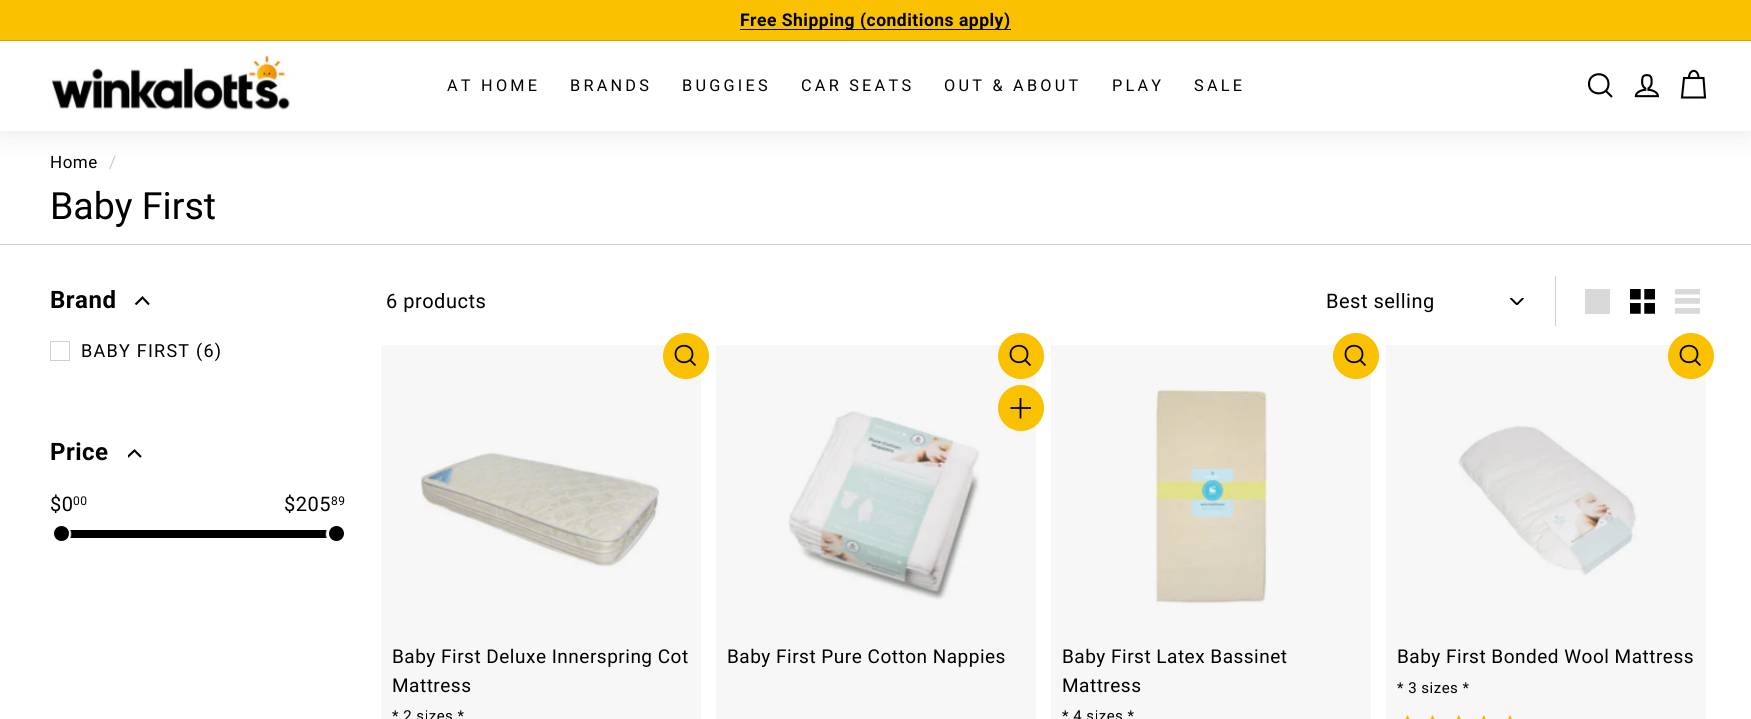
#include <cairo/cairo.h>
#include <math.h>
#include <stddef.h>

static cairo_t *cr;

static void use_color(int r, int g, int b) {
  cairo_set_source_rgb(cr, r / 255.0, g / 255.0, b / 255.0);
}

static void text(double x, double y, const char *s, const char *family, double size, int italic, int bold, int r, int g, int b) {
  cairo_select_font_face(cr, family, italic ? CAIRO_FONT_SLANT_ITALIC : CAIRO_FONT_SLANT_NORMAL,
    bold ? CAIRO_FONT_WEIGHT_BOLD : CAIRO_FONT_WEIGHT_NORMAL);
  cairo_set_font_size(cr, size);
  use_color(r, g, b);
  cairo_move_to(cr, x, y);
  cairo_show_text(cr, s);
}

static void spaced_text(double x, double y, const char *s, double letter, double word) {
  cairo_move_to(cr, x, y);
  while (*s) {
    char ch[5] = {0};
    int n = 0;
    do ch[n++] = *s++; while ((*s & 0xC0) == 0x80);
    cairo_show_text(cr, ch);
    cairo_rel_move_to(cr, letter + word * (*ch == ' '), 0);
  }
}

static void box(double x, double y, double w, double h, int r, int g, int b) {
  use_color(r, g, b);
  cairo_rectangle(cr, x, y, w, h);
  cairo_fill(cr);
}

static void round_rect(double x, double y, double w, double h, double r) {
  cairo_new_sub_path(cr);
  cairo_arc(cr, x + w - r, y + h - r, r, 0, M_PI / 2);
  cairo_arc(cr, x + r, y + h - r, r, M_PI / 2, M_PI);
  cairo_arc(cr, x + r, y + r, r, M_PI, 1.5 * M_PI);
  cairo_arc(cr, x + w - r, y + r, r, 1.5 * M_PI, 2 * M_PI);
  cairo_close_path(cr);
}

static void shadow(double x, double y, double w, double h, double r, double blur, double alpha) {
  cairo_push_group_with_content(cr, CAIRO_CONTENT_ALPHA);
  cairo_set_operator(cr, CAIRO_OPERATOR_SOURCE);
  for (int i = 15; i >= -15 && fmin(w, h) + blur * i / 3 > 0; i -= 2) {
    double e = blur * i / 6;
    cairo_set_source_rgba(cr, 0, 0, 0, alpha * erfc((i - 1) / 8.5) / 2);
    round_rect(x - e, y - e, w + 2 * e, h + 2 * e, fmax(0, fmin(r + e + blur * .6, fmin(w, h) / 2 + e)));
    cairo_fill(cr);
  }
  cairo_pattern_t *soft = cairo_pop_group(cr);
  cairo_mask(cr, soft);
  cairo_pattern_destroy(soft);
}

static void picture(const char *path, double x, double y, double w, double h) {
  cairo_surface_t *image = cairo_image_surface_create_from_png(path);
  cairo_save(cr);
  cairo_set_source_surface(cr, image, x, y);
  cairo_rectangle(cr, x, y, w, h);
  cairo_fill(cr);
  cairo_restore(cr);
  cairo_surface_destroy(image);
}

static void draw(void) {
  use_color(255, 255, 255);
  cairo_paint(cr);
  box(1386, 345, 320, 374, 247, 247, 247);
  box(1051, 345, 320, 374, 247, 247, 247);
  box(716, 345, 320, 374, 247, 247, 247);
  box(381, 345, 320, 374, 247, 247, 247);
  use_color(0, 0, 0);
  shadow(0, 41, 1751, 90, 0, 15.5, 0.1);
  box(0, 0, 1751, 40, 249, 193, 0);
  box(740, 29, 271, 1, 0, 0, 0);
  box(0, 40, 1751, 1, 212, 164, 0);
  box(0, 41, 1751, 90, 255, 255, 255);
  picture("img_01.png", 50, 54, 240, 56);
  cairo_new_path(cr);
  cairo_move_to(cr, 1608.5, 84);
  cairo_curve_to(cr, 1608.5, 96.5, 1589, 96.5, 1589, 84);
  cairo_curve_to(cr, 1589, 71, 1608.5, 71, 1608.5, 84);
  cairo_close_path(cr);
  cairo_move_to(cr, 1612, 97);
  cairo_line_to(cr, 1606, 91);
  use_color(0, 0, 0);
  cairo_set_line_width(cr, 2.1);
  cairo_stroke(cr);
  picture("img_02.png", 1634, 74, 25, 24);
  cairo_new_path(cr);
  cairo_move_to(cr, 1689, 78);
  cairo_curve_to(cr, 1689, 68.5, 1698.5, 68.5, 1698.5, 78);
  cairo_move_to(cr, 1684, 78);
  cairo_line_to(cr, 1703.5, 78);
  cairo_line_to(cr, 1705, 97.5);
  cairo_line_to(cr, 1682, 97.5);
  cairo_close_path(cr);
  cairo_stroke(cr);
  box(0, 244, 1751, 1, 207, 207, 207);
  cairo_new_path(cr);
  cairo_move_to(cr, 149, 304.5);
  cairo_line_to(cr, 142.5, 297.5);
  cairo_line_to(cr, 135.5, 304.5);
  use_color(0, 0, 0);
  cairo_stroke(cr);
  cairo_rectangle(cr, 50.5, 341.5, 19, 19);
  use_color(207, 207, 207);
  cairo_set_line_width(cr, 1);
  cairo_stroke(cr);
  cairo_save(cr);
  cairo_rectangle(cr, 128, 445, 15, 15);
  cairo_clip(cr);
  cairo_new_path(cr);
  cairo_move_to(cr, 141, 457);
  cairo_line_to(cr, 134.5, 450.5);
  cairo_line_to(cr, 127.5, 457);
  use_color(0, 0, 0);
  cairo_set_line_width(cr, 2.1);
  cairo_stroke(cr);
  cairo_restore(cr);
  box(60, 530, 276, 8, 0, 0, 0);
  use_color(255, 255, 255);
  shadow(51, 524, 20, 20, 10, 0.5, 1);
  use_color(0, 0, 0);
  cairo_arc(cr, 61.5, 533.5, 7.5, 0, 2 * M_PI);
  cairo_fill(cr);
  use_color(255, 255, 255);
  shadow(326, 524, 20, 20, 10, 0.5, 1);
  use_color(0, 0, 0);
  cairo_arc(cr, 336.5, 533.5, 7.5, 0, 2 * M_PI);
  cairo_fill(cr);
  box(1555, 276, 1, 50, 207, 207, 207);
  picture("img_03.png", 1510, 298, 14, 7);
  box(1585, 289, 25, 25, 217, 217, 217);
  picture("img_04.png", 1630, 289, 25, 25);
  picture("img_05.png", 1675, 289, 25, 25);
  use_color(249, 193, 0);
  cairo_arc(cr, 686, 356, 23, 0, 2 * M_PI);
  cairo_fill(cr);
  cairo_new_path(cr);
  cairo_move_to(cr, 692.5, 354);
  cairo_curve_to(cr, 692.5, 365, 675.5, 365, 675.5, 354);
  cairo_curve_to(cr, 675.5, 343, 692.5, 343, 692.5, 354);
  cairo_close_path(cr);
  cairo_move_to(cr, 695.5, 365.5);
  cairo_line_to(cr, 690, 360);
  use_color(0, 0, 0);
  cairo_set_line_width(cr, 1.8);
  cairo_stroke(cr);
  picture("img_06.png", 421, 452, 239, 117);
  use_color(249, 193, 0);
  cairo_arc(cr, 1021, 356, 23, 0, 2 * M_PI);
  cairo_fill(cr);
  cairo_new_path(cr);
  cairo_move_to(cr, 1027.5, 354);
  cairo_curve_to(cr, 1027.5, 365, 1010.5, 365, 1010.5, 354);
  cairo_curve_to(cr, 1010.5, 343, 1027.5, 343, 1027.5, 354);
  cairo_close_path(cr);
  cairo_move_to(cr, 1030.5, 365.5);
  cairo_line_to(cr, 1025, 360);
  use_color(0, 0, 0);
  cairo_stroke(cr);
  use_color(249, 193, 0);
  cairo_arc(cr, 1021, 408, 23, 0, 2 * M_PI);
  cairo_fill(cr);
  cairo_new_path(cr);
  cairo_move_to(cr, 1020.5, 398);
  cairo_line_to(cr, 1020.5, 418.5);
  cairo_move_to(cr, 1031, 408);
  cairo_line_to(cr, 1010.5, 408);
  use_color(0, 0, 0);
  cairo_stroke(cr);
  picture("img_07.png", 788, 411, 192, 189);
  use_color(249, 193, 0);
  cairo_arc(cr, 1356, 356, 23, 0, 2 * M_PI);
  cairo_fill(cr);
  cairo_new_path(cr);
  cairo_move_to(cr, 1362.5, 354);
  cairo_curve_to(cr, 1362.5, 365, 1345.5, 365, 1345.5, 354);
  cairo_curve_to(cr, 1345.5, 343, 1362.5, 343, 1362.5, 354);
  cairo_close_path(cr);
  cairo_move_to(cr, 1365.5, 365.5);
  cairo_line_to(cr, 1360, 360);
  use_color(0, 0, 0);
  cairo_stroke(cr);
  picture("img_08.png", 1155, 389, 113, 215);
  use_color(249, 193, 0);
  cairo_arc(cr, 1691, 356, 23, 0, 2 * M_PI);
  cairo_fill(cr);
  cairo_new_path(cr);
  cairo_move_to(cr, 1697.5, 354);
  cairo_curve_to(cr, 1697.5, 365, 1680.5, 365, 1680.5, 354);
  cairo_curve_to(cr, 1680.5, 343, 1697.5, 343, 1697.5, 354);
  cairo_close_path(cr);
  cairo_move_to(cr, 1700.5, 365.5);
  cairo_line_to(cr, 1695, 360);
  use_color(0, 0, 0);
  cairo_stroke(cr);
  picture("img_09.png", 1458, 425, 179, 151);
  picture("img_10.png", 1405, 715, 5, 4);
  picture("img_10.png", 1430, 715, 5, 4);
  picture("img_11.png", 1456, 715, 5, 4);
  picture("img_12.png", 1481, 715, 5, 4);
  picture("img_13.png", 1508, 715, 4, 4);
  cairo_select_font_face(cr, "Roboto", CAIRO_FONT_SLANT_NORMAL, CAIRO_FONT_WEIGHT_BOLD);
  cairo_set_font_size(cr, 17.5);
  spaced_text(740, 26, "Free Shipping (conditions apply)", 0.5, 0);
  cairo_select_font_face(cr, "Roboto", CAIRO_FONT_SLANT_NORMAL, CAIRO_FONT_WEIGHT_NORMAL);
  cairo_set_font_size(cr, 16.25);
  spaced_text(447, 91, "AT HOME", 3.25, 0);
  spaced_text(570, 91, "BRANDS", 3.25, 0);
  spaced_text(682, 91, "BUGGIES", 3.25, 0);
  spaced_text(801, 91, "CAR SEATS", 3.25, 0);
  spaced_text(944, 91, "OUT & ABOUT", 3.25, 0);
  spaced_text(1112, 91, "PLAY", 3.25, 0);
  spaced_text(1194, 91, "SALE", 3.25, 0);
  cairo_set_font_size(cr, 17);
  spaced_text(50, 168, "Home", 0.5, 0);
  use_color(204, 204, 204);
  spaced_text(109, 168, "/", 0.5, 0);
  text(50, 219, "Baby First", "Roboto", 37.5, 0, 0, 0, 0, 0);
  cairo_select_font_face(cr, "Roboto", CAIRO_FONT_SLANT_NORMAL, CAIRO_FONT_WEIGHT_BOLD);
  cairo_set_font_size(cr, 24);
  spaced_text(50, 308, "Brand", 0.5, 0);
  cairo_select_font_face(cr, "Roboto", CAIRO_FONT_SLANT_NORMAL, CAIRO_FONT_WEIGHT_NORMAL);
  cairo_set_font_size(cr, 18);
  spaced_text(81, 357, "BABY FIRST (6)", 1.25, 0);
  cairo_select_font_face(cr, "Roboto", CAIRO_FONT_SLANT_NORMAL, CAIRO_FONT_WEIGHT_BOLD);
  cairo_set_font_size(cr, 24);
  spaced_text(50, 460, "Price", 0.5, 0);
  cairo_select_font_face(cr, "Roboto", CAIRO_FONT_SLANT_NORMAL, CAIRO_FONT_WEIGHT_NORMAL);
  cairo_set_font_size(cr, 20);
  spaced_text(50, 511, "$0", 0.5, 0);
  cairo_set_font_size(cr, 12);
  spaced_text(73, 505, "00", 0.5, 0);
  cairo_set_font_size(cr, 20);
  spaced_text(284, 511, "$205", 0.5, 0);
  cairo_set_font_size(cr, 12);
  spaced_text(331, 505, "89", 0.5, 0);
  cairo_set_font_size(cr, 20);
  spaced_text(386, 308, "6 products", 0.5, 0);
  spaced_text(1326, 308, "Best selling", 0.5, 0);
  cairo_set_font_size(cr, 19);
  spaced_text(392, 663, "Baby First Deluxe Innerspring Cot", 0.5, 0);
  spaced_text(392, 692, "Mattress", 0.5, 0);
  cairo_set_font_size(cr, 15);
  spaced_text(392, 721, "* 2 sizes *", 0.5, 0);
  cairo_set_font_size(cr, 19);
  spaced_text(727, 663, "Baby First Pure Cotton Nappies", 0.5, 0);
  spaced_text(1062, 663, "Baby First Latex Bassinet", 0.5, 0);
  spaced_text(1062, 692, "Mattress", 0.5, 0);
  cairo_set_font_size(cr, 15);
  spaced_text(1062, 721, "* 4 sizes *", 0.5, 0);
  cairo_set_font_size(cr, 19);
  spaced_text(1397, 663, "Baby First Bonded Wool Mattress", 0.5, 0);
  cairo_set_font_size(cr, 15);
  spaced_text(1397, 693, "* 3 sizes *", 0.5, 0);
}

int main(void) {
  cairo_surface_t *surface = cairo_image_surface_create(CAIRO_FORMAT_RGB24, 1751, 719);
  cr = cairo_create(surface);
  cairo_font_options_t *options = cairo_font_options_create();
  cairo_font_options_set_hint_metrics(options, CAIRO_HINT_METRICS_OFF);
  cairo_font_options_set_hint_style(options, CAIRO_HINT_STYLE_NONE);
  cairo_set_font_options(cr, options);
  cairo_set_miter_limit(cr, 4);
  draw();
  cairo_surface_write_to_png(surface, "out.png");
  cairo_font_options_destroy(options);
  cairo_destroy(cr);
  cairo_surface_destroy(surface);
  return 0;
}
